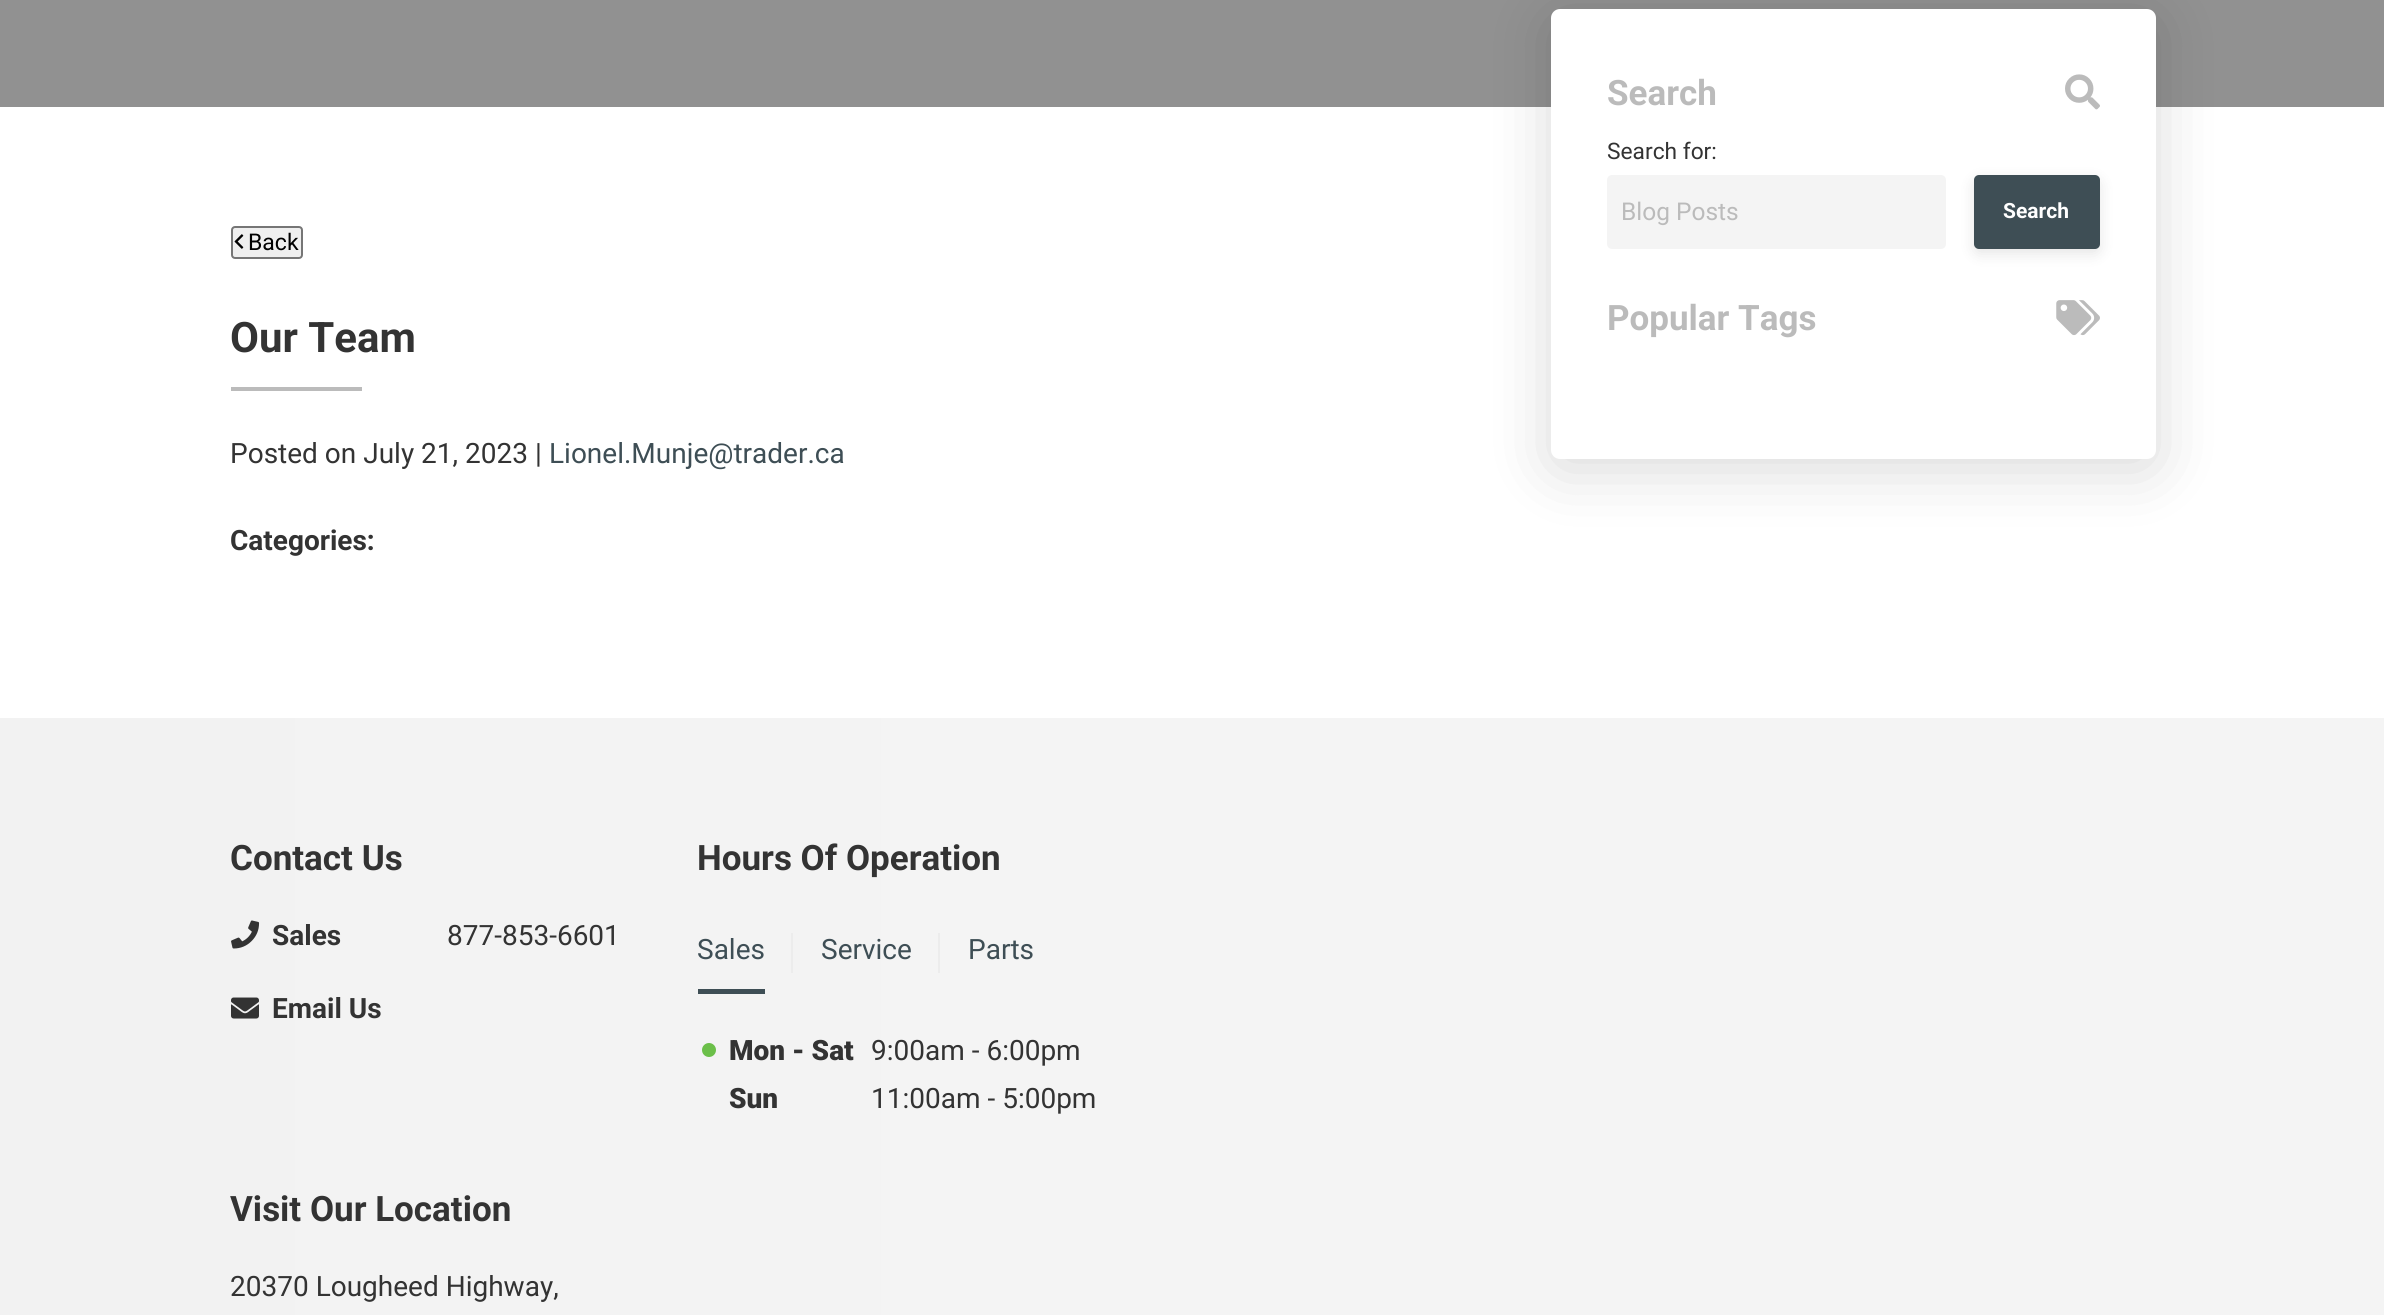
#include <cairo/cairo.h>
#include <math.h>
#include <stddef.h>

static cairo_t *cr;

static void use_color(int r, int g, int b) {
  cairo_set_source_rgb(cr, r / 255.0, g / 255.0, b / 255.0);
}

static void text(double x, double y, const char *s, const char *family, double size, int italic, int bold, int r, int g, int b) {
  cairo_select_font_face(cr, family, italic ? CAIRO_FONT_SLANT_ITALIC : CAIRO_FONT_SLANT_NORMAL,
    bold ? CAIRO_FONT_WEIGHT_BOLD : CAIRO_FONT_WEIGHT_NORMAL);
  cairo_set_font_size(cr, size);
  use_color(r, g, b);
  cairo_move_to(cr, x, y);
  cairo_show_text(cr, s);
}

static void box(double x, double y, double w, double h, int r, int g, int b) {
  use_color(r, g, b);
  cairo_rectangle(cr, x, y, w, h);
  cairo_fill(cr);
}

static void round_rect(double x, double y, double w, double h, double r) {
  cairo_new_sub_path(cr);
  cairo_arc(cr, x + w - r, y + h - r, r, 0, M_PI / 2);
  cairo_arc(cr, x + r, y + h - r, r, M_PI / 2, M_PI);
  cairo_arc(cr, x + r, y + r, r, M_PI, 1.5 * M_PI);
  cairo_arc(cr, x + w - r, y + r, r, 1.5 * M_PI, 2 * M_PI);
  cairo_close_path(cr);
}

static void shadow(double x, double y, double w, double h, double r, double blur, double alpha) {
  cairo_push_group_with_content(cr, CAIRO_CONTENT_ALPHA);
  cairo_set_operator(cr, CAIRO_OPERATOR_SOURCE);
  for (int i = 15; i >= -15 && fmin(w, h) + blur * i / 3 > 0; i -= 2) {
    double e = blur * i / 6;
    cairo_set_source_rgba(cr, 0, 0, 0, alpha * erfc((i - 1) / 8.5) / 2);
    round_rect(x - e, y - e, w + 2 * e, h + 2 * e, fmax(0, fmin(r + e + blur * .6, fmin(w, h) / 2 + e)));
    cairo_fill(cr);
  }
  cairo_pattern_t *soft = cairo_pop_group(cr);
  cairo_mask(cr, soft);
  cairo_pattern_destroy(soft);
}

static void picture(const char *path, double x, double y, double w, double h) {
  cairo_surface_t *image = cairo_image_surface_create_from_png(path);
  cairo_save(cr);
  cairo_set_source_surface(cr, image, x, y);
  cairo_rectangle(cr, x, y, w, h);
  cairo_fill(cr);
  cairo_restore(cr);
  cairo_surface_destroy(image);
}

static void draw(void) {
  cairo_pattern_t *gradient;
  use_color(255, 255, 255);
  cairo_paint(cr);
  box(0, 0, 2384, 107, 145, 145, 145);
  use_color(239, 239, 239);
  round_rect(232, 227, 70, 31, 3);
  cairo_fill_preserve(cr);
  use_color(118, 118, 118);
  cairo_stroke(cr);
  picture("img_01.png", 234, 234, 10, 15);
  box(231, 387, 131, 4, 187, 187, 187);
  use_color(0, 0, 0);
  shadow(1551, 19, 605, 450, 9, 31.5, 0.15);
  use_color(255, 255, 255);
  round_rect(1551, 9, 605, 450, 9);
  cairo_fill(cr);
  picture("img_02.png", 2065, 74, 35, 36);
  use_color(244, 244, 244);
  round_rect(1607, 175, 339, 74, 5);
  cairo_fill(cr);
  use_color(0, 0, 0);
  shadow(1974, 180, 126, 74, 5, 7, 0.1);
  use_color(62, 78, 85);
  round_rect(1974, 175, 126, 74, 5);
  cairo_fill(cr);
  picture("img_03.png", 2056, 300, 44, 36);
  box(1194, 718, 1190, 597, 244, 244, 244);
  gradient = cairo_pattern_create_linear(0, 1143, 1194, 1143);
  cairo_pattern_add_color_stop_rgba(gradient, 0, 0.949, 0.949, 0.949, 1);
  cairo_pattern_add_color_stop_rgba(gradient, 1, 0.957, 0.957, 0.957, 1);
  cairo_set_source(cr, gradient);
  cairo_pattern_destroy(gradient);
  cairo_rectangle(cr, 0, 718, 1194, 597);
  cairo_fill(cr);
  picture("img_04.png", 231, 920, 29, 29);
  picture("img_05.png", 231, 997, 28, 22);
  box(698, 989, 67, 5, 62, 78, 85);
  box(791, 933, 2, 40, 236, 236, 236);
  box(938, 933, 2, 40, 236, 236, 236);
  use_color(107, 191, 73);
  cairo_arc(cr, 709, 1050, 7, 0, 2 * M_PI);
  cairo_fill(cr);
  text(248, 250, "Back", "Roboto", 23, 0, 0, 0, 0, 0);
  text(230, 352, "Our Team", "Roboto", 42, 0, 1, 51, 51, 51);
  text(230, 463, "Posted on July 21, 2023 |", "Roboto", 28, 0, 0, 51, 51, 51);
  text(549, 463, "Lionel.Munje@trader.ca", "Roboto", 28, 0, 0, 62, 78, 85);
  text(230, 550, "Categories:", "Roboto", 28, 0, 1, 51, 51, 51);
  text(1607, 105, "Search", "Roboto", 35, 0, 1, 187, 187, 187);
  text(1607, 159, "Search for:", "Roboto", 22.75, 0, 0, 51, 51, 51);
  text(1621, 220, "Blog Posts", "Roboto", 24.5, 0, 0, 187, 187, 187);
  text(2003, 218, "Search", "Roboto", 21, 0, 1, 255, 255, 255);
  text(1607, 330, "Popular Tags", "Roboto", 35, 0, 1, 187, 187, 187);
  text(230, 870, "Contact Us", "Roboto", 35, 0, 1, 51, 51, 51);
  text(272, 945, "Sales", "Roboto", 28, 0, 1, 51, 51, 51);
  text(447, 945, "877-853-6601", "Roboto", 28, 0, 0, 51, 51, 51);
  text(272, 1018, "Email Us", "Roboto", 28, 0, 1, 51, 51, 51);
  text(697, 870, "Hours Of Operation", "Roboto", 35, 0, 1, 51, 51, 51);
  text(697, 959, "Sales", "Roboto", 28, 0, 0, 62, 78, 85);
  text(821, 959, "Service", "Roboto", 28, 0, 0, 62, 78, 85);
  text(968, 959, "Parts", "Roboto", 28, 0, 0, 62, 78, 85);
  text(729, 1060, "Mon - Sat", "Roboto Black", 28, 0, 0, 51, 51, 51);
  text(871, 1060, "9:00am - 6:00pm", "Roboto", 28, 0, 0, 51, 51, 51);
  text(729, 1108, "Sun", "Roboto Black", 28, 0, 0, 51, 51, 51);
  text(871, 1108, "11:00am - 5:00pm", "Roboto", 28, 0, 0, 51, 51, 51);
  text(230, 1221, "Visit Our Location", "Roboto", 35, 0, 1, 51, 51, 51);
  text(230, 1296, "20370 Lougheed Highway,", "Roboto", 28, 0, 0, 51, 51, 51);
}

int main(void) {
  cairo_surface_t *surface = cairo_image_surface_create(CAIRO_FORMAT_RGB24, 2384, 1315);
  cr = cairo_create(surface);
  cairo_font_options_t *options = cairo_font_options_create();
  cairo_font_options_set_hint_metrics(options, CAIRO_HINT_METRICS_OFF);
  cairo_font_options_set_hint_style(options, CAIRO_HINT_STYLE_NONE);
  cairo_set_font_options(cr, options);
  cairo_set_miter_limit(cr, 4);
  draw();
  cairo_surface_write_to_png(surface, "out.png");
  cairo_font_options_destroy(options);
  cairo_destroy(cr);
  cairo_surface_destroy(surface);
  return 0;
}
